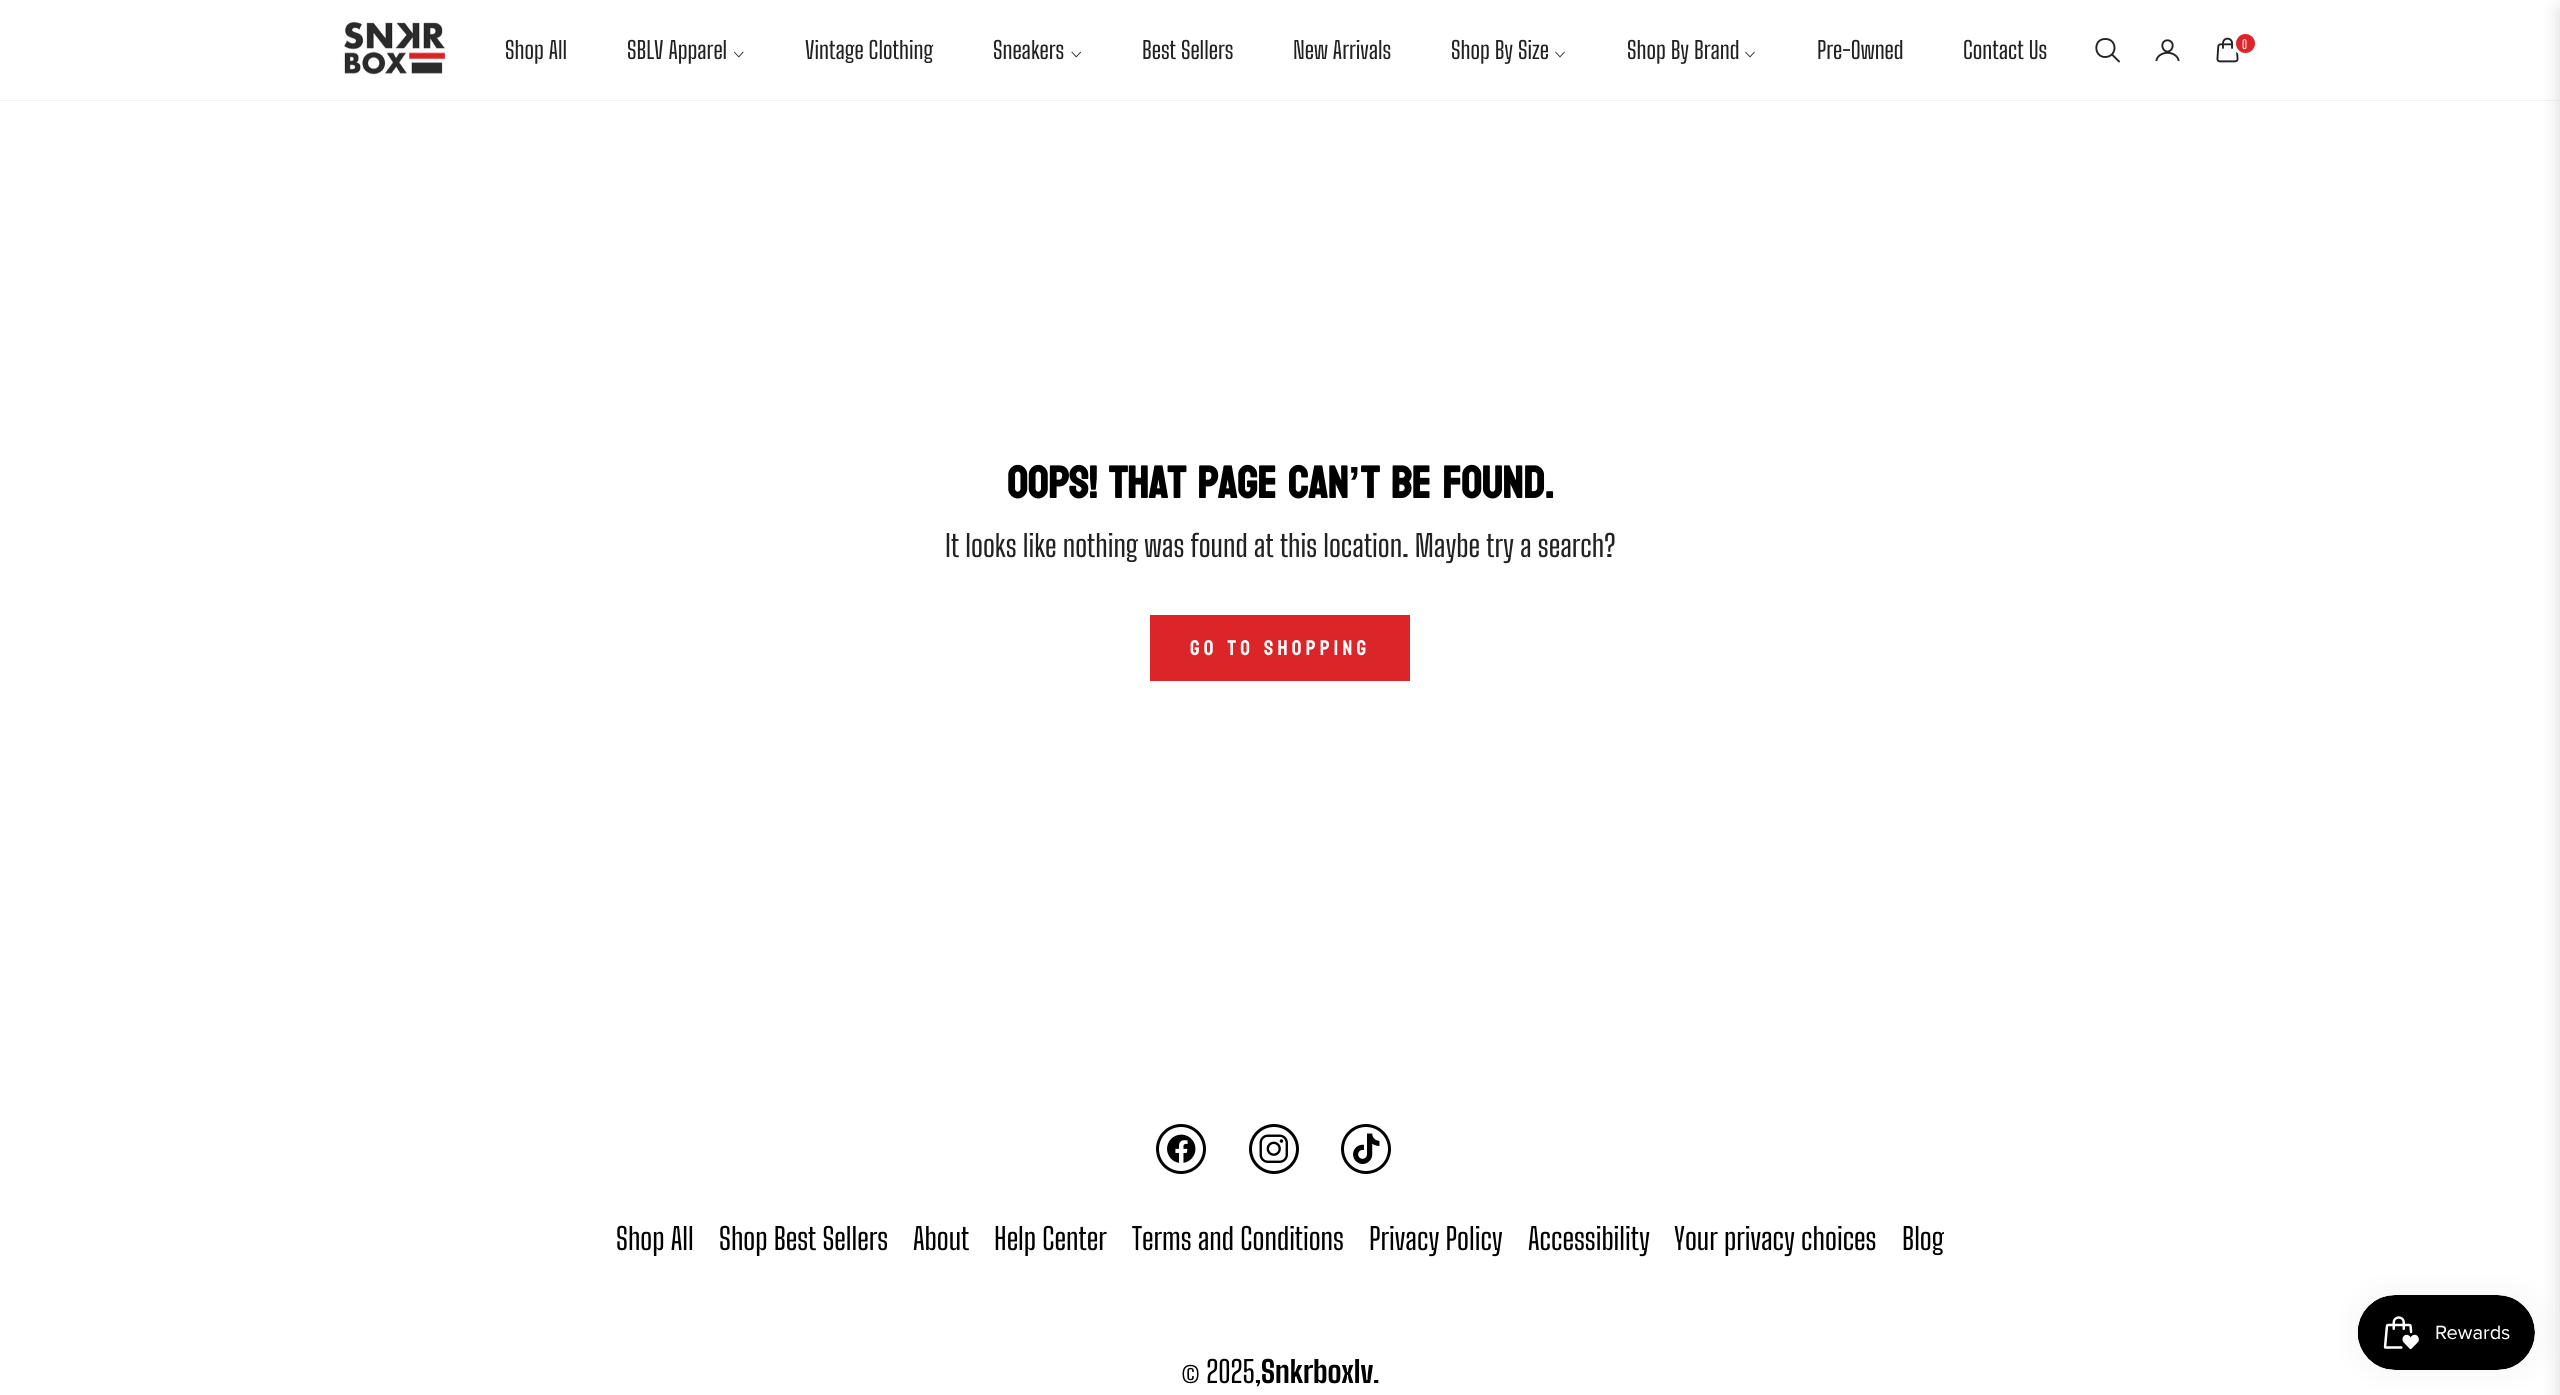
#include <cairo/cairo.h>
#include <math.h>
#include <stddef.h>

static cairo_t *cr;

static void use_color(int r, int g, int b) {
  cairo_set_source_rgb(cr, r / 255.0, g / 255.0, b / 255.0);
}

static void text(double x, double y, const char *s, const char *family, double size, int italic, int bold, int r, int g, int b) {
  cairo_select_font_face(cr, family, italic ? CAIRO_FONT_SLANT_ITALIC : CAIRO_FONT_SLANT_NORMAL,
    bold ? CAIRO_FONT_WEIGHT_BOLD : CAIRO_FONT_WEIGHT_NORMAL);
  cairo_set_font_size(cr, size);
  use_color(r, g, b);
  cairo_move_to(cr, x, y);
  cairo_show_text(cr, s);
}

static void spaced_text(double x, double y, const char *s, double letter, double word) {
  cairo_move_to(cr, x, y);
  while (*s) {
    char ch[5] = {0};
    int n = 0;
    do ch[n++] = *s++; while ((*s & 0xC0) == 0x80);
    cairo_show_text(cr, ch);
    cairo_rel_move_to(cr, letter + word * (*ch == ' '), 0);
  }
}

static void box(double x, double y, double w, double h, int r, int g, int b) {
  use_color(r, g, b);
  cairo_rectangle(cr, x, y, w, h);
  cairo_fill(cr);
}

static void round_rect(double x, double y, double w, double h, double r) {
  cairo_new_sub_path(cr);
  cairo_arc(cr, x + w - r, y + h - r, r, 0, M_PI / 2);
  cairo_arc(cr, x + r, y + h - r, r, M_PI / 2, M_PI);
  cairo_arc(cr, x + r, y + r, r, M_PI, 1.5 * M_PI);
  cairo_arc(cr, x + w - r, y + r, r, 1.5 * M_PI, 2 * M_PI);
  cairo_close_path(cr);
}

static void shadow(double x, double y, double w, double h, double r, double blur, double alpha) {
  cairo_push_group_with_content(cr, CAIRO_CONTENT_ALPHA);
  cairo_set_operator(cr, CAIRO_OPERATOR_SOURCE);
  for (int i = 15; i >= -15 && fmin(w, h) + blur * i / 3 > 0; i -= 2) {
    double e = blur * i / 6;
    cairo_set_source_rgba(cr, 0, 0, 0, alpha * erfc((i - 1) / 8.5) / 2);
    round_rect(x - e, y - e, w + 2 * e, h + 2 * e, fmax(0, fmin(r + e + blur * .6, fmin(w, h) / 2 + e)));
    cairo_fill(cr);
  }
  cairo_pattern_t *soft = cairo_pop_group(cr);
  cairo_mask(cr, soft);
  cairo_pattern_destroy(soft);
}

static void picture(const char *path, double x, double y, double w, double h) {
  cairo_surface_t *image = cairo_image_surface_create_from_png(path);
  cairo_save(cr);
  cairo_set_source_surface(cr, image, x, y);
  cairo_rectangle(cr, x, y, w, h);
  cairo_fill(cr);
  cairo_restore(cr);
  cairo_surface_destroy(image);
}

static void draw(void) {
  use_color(255, 255, 255);
  cairo_paint(cr);
  cairo_rectangle(cr, -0.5, -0.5, 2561, 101);
  use_color(242, 242, 242);
  cairo_set_line_width(cr, 1);
  cairo_stroke(cr);
  picture("img_01.png", 343, 22, 103, 53);
  picture("img_02.png", 734, 51, 10, 7);
  picture("img_03.png", 1071, 51, 10, 7);
  picture("img_04.png", 1555, 51, 10, 7);
  picture("img_04.png", 1745, 51, 10, 7);
  cairo_new_path(cr);
  cairo_move_to(cr, 2105.5, 39);
  cairo_curve_to(cr, 2093, 38.5, 2093.5, 57.5, 2105.5, 57);
  cairo_curve_to(cr, 2117.5, 56.5, 2117.5, 39, 2105.5, 39);
  cairo_close_path(cr);
  use_color(34, 34, 34);
  cairo_set_line_width(cr, 1.9);
  cairo_stroke(cr);
  cairo_new_path(cr);
  cairo_move_to(cr, 2112.5, 55);
  cairo_line_to(cr, 2119, 61.5);
  cairo_set_line_cap(cr, CAIRO_LINE_CAP_ROUND);
  cairo_stroke(cr);
  picture("img_05.png", 2155, 39, 25, 22);
  picture("img_06.png", 2216, 37, 23, 26);
  use_color(220, 37, 40);
  cairo_arc(cr, 2245.5, 43.5, 11, 0, 2 * M_PI);
  cairo_fill_preserve(cr);
  use_color(255, 255, 255);
  cairo_set_line_width(cr, 3);
  cairo_set_line_cap(cr, CAIRO_LINE_CAP_BUTT);
  cairo_stroke(cr);
  use_color(0, 0, 0);
  shadow(2560, 10, 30, 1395, 0, 10, 0.15);
  box(1150, 615, 260, 66, 220, 37, 40);
  cairo_arc(cr, 1181, 1149, 23.5, 0, 2 * M_PI);
  use_color(0, 0, 0);
  cairo_stroke(cr);
  picture("img_07.png", 1167, 1134, 29, 29);
  cairo_arc(cr, 1274, 1149, 23.5, 0, 2 * M_PI);
  cairo_stroke(cr);
  picture("img_08.png", 1259, 1134, 29, 29);
  cairo_arc(cr, 1366, 1149, 23.5, 0, 2 * M_PI);
  cairo_stroke(cr);
  picture("img_09.png", 1353, 1133, 27, 31);
  use_color(0, 0, 0);
  shadow(2358, 1295, 177, 75, 37.5, 15.5, 0.05);
  picture("img_10.png", 2357, 1295, 178, 75);
  text(505, 59, "Shop All", "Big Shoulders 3", 23.75, 0, 0, 34, 34, 34);
  text(627, 59, "SBLV Apparel", "Big Shoulders 3", 23.75, 0, 0, 34, 34, 34);
  text(805, 59, "Vintage Clothing", "Big Shoulders 3", 23.75, 0, 0, 34, 34, 34);
  text(993, 59, "Sneakers", "Big Shoulders 3", 23.75, 0, 0, 34, 34, 34);
  text(1142, 59, "Best Sellers", "Big Shoulders 3", 23.75, 0, 0, 34, 34, 34);
  text(1293, 59, "New Arrivals", "Big Shoulders 3", 23.75, 0, 0, 34, 34, 34);
  text(1451, 59, "Shop By Size", "Big Shoulders 3", 23.75, 0, 0, 34, 34, 34);
  text(1627, 59, "Shop By Brand", "Big Shoulders 3", 23.75, 0, 0, 34, 34, 34);
  text(1817, 59, "Pre-Owned", "Big Shoulders 3", 23.75, 0, 0, 34, 34, 34);
  text(1963, 59, "Contact Us", "Big Shoulders 3", 23.75, 0, 0, 34, 34, 34);
  text(2242, 49, "0", "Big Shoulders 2", 12, 0, 0, 255, 255, 255);
  text(1007, 498, "OOPS! THAT PAGE CAN", "Bayon", 45, 0, 1, 0, 0, 0);
  text(1348, 498, "’", "Liberation Sans", 45, 0, 1, 0, 0, 0);
  text(1361, 498, "T BE FOUND.", "Bayon", 45, 0, 1, 0, 0, 0);
  text(945, 557, "It looks like nothing was found at this location. Maybe try a search?", "Big Shoulders", 30, 0, 0, 34, 34, 34);
  cairo_select_font_face(cr, "Bayon", CAIRO_FONT_SLANT_NORMAL, CAIRO_FONT_WEIGHT_NORMAL);
  cairo_set_font_size(cr, 21.25);
  use_color(255, 255, 255);
  spaced_text(1190, 655, "GO TO SHOPPING", 4.25, 0);
  text(616, 1250, "Shop All", "Big Shoulders", 30, 0, 0, 0, 0, 0);
  text(719, 1250, "Shop Best Sellers", "Big Shoulders", 30, 0, 0, 0, 0, 0);
  text(913, 1250, "About", "Big Shoulders", 30, 0, 0, 0, 0, 0);
  text(994, 1250, "Help Center", "Big Shoulders", 30, 0, 0, 0, 0, 0);
  text(1132, 1250, "Terms and Conditions", "Big Shoulders", 30, 0, 0, 0, 0, 0);
  text(1369, 1250, "Privacy Policy", "Big Shoulders", 30, 0, 0, 0, 0, 0);
  text(1528, 1250, "Accessibility", "Big Shoulders", 30, 0, 0, 0, 0, 0);
  text(1674, 1250, "Your privacy choices", "Big Shoulders", 30, 0, 0, 0, 0, 0);
  text(1902, 1250, "Blog", "Big Shoulders", 30, 0, 0, 0, 0, 0);
  text(1181, 1383, "© 2025,", "Big Shoulders", 30, 0, 0, 0, 0, 0);
  text(1261, 1383, "Snkrboxlv", "Big Shoulders", 30, 0, 1, 0, 0, 0);
  text(1373, 1383, ".", "Big Shoulders", 30, 0, 0, 0, 0, 0);
}

int main(void) {
  cairo_surface_t *surface = cairo_image_surface_create(CAIRO_FORMAT_RGB24, 2560, 1395);
  cr = cairo_create(surface);
  cairo_font_options_t *options = cairo_font_options_create();
  cairo_font_options_set_hint_metrics(options, CAIRO_HINT_METRICS_OFF);
  cairo_font_options_set_hint_style(options, CAIRO_HINT_STYLE_NONE);
  cairo_set_font_options(cr, options);
  cairo_set_miter_limit(cr, 4);
  draw();
  cairo_surface_write_to_png(surface, "out.png");
  cairo_font_options_destroy(options);
  cairo_destroy(cr);
  cairo_surface_destroy(surface);
  return 0;
}
